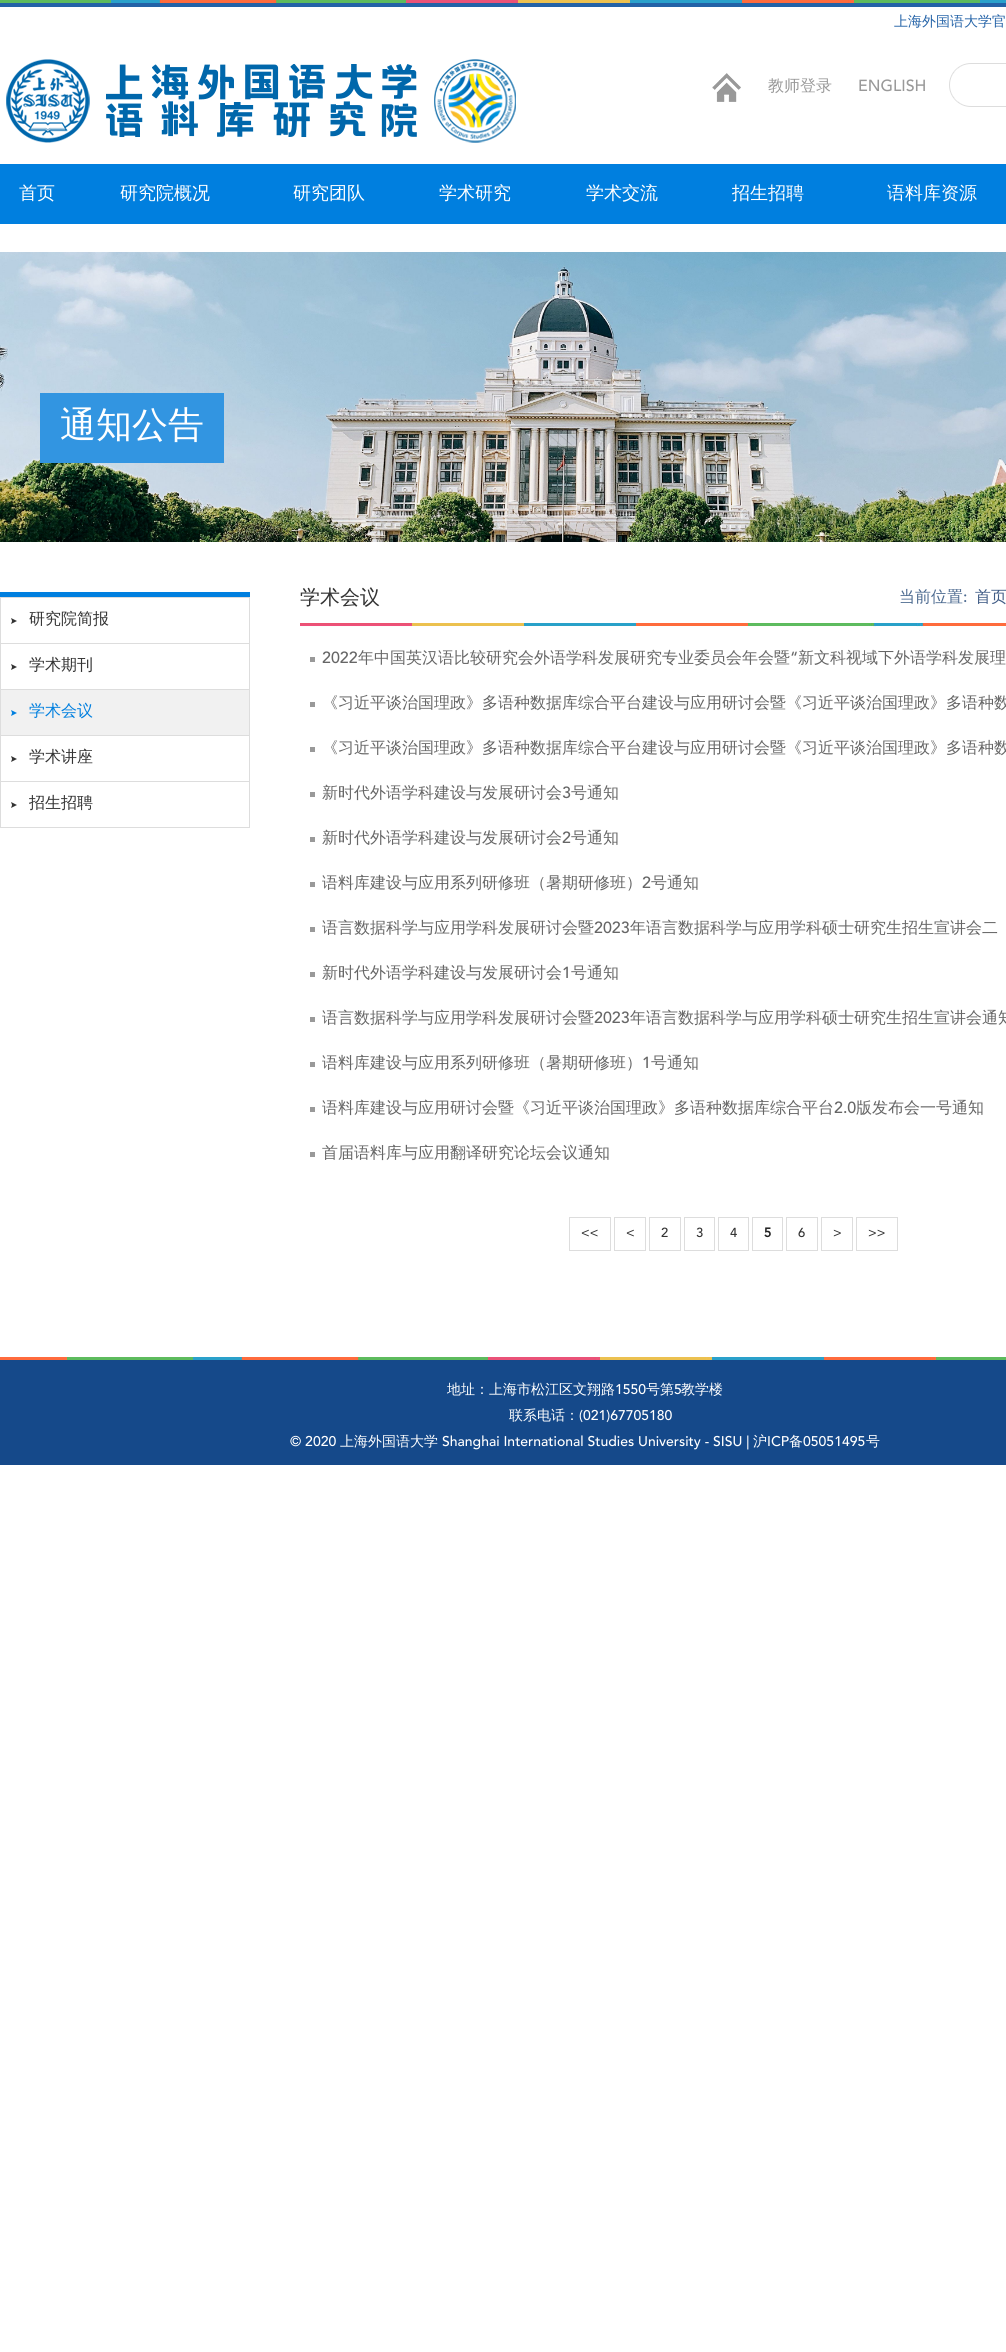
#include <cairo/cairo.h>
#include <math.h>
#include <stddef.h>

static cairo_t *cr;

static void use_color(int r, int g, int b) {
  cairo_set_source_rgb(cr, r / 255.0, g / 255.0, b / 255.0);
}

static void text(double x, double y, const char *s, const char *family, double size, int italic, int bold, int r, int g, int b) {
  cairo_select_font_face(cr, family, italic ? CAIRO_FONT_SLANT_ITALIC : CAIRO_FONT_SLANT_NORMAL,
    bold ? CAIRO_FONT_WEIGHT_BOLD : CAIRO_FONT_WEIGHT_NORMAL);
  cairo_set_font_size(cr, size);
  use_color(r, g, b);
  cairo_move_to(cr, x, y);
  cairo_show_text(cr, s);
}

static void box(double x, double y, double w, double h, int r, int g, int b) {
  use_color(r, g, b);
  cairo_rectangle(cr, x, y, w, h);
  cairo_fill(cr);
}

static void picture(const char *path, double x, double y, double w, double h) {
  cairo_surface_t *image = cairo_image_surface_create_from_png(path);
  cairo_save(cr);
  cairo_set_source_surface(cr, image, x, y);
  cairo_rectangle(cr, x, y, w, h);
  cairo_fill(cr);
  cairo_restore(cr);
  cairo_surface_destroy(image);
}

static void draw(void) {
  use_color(255, 255, 255);
  cairo_paint(cr);
  picture("img_01.png", 0, 0, 1006, 3);
  box(0, 3, 1006, 4, 35, 98, 167);
  picture("img_02.png", 6, 59, 510, 84);
  picture("img_03.png", 712, 73, 29, 29);
  picture("img_04.png", 949, 63, 57, 44);
  box(0, 164, 1006, 60, 0, 127, 223);
  picture("img_05.png", 0, 252, 1006, 290);
  box(40, 393, 184, 70, 50, 149, 225);
  box(0, 592, 250, 5, 0, 127, 223);
  cairo_rectangle(cr, 0.5, 597.5, 249, 230);
  use_color(221, 221, 221);
  cairo_set_line_width(cr, 1);
  cairo_stroke(cr);
  box(1, 643, 248, 1, 221, 221, 221);
  picture("img_06.png", 11, 618, 6, 6);
  box(1, 689, 248, 1, 221, 221, 221);
  picture("img_06.png", 11, 664, 6, 6);
  box(1, 735, 248, 1, 221, 221, 221);
  box(1, 690, 248, 45, 241, 241, 241);
  picture("img_07.png", 11, 710, 6, 6);
  box(1, 781, 248, 1, 221, 221, 221);
  picture("img_06.png", 11, 756, 6, 6);
  picture("img_06.png", 11, 802, 6, 6);
  picture("img_08.png", 300, 623, 706, 4);
  box(310, 657, 5, 5, 153, 153, 153);
  box(310, 702, 5, 5, 153, 153, 153);
  box(310, 747, 5, 5, 153, 153, 153);
  box(310, 792, 5, 5, 153, 153, 153);
  box(310, 837, 5, 5, 153, 153, 153);
  box(310, 882, 5, 5, 153, 153, 153);
  box(310, 927, 5, 5, 153, 153, 153);
  box(310, 972, 5, 5, 153, 153, 153);
  box(310, 1017, 5, 5, 153, 153, 153);
  box(310, 1062, 5, 5, 153, 153, 153);
  box(310, 1107, 5, 5, 153, 153, 153);
  box(310, 1152, 5, 5, 153, 153, 153);
  cairo_rectangle(cr, 569.5, 1217.5, 41, 33);
  use_color(221, 221, 221);
  cairo_stroke(cr);
  cairo_rectangle(cr, 614.5, 1217.5, 31, 33);
  cairo_stroke(cr);
  cairo_rectangle(cr, 649.5, 1217.5, 31, 33);
  cairo_stroke(cr);
  cairo_rectangle(cr, 684.5, 1217.5, 30, 33);
  cairo_stroke(cr);
  cairo_rectangle(cr, 718.5, 1217.5, 30, 33);
  cairo_stroke(cr);
  cairo_rectangle(cr, 752.5, 1217.5, 30, 33);
  cairo_stroke(cr);
  cairo_rectangle(cr, 786.5, 1217.5, 31, 33);
  cairo_stroke(cr);
  cairo_rectangle(cr, 821.5, 1217.5, 31, 33);
  cairo_stroke(cr);
  cairo_rectangle(cr, 856.5, 1217.5, 41, 33);
  cairo_stroke(cr);
  box(0, 1360, 1006, 105, 21, 73, 138);
  picture("img_09.png", 0, 1357, 1006, 3);
  text(894, 26, "上海外国语大学官", "WenQuanYi Zen Hei Medium", 14, 0, 0, 35, 98, 167);
  text(768, 91, "教师登录", "WenQuanYi Zen Hei Medium", 16, 0, 0, 153, 153, 153);
  text(858, 91, "ENGLISH", "Avenir Medium", 16, 0, 0, 153, 153, 153);
  text(19, 199, "首页", "WenQuanYi Zen Hei Medium", 18, 0, 0, 255, 255, 255);
  text(120, 199, "研究院概况", "WenQuanYi Zen Hei Medium", 18, 0, 0, 255, 255, 255);
  text(293, 199, "研究团队", "WenQuanYi Zen Hei Medium", 18, 0, 0, 255, 255, 255);
  text(439, 199, "学术研究", "WenQuanYi Zen Hei Medium", 18, 0, 0, 255, 255, 255);
  text(586, 199, "学术交流", "WenQuanYi Zen Hei Medium", 18, 0, 0, 255, 255, 255);
  text(732, 199, "招生招聘", "WenQuanYi Zen Hei Medium", 18, 0, 0, 255, 255, 255);
  text(887, 199, "语料库资源", "WenQuanYi Zen Hei Medium", 18, 0, 0, 255, 255, 255);
  text(60, 437, "通知公告", "WenQuanYi Zen Hei Medium", 36, 0, 0, 255, 255, 255);
  text(29, 624, "研究院简报", "WenQuanYi Zen Hei Medium", 16, 0, 0, 51, 51, 51);
  text(29, 670, "学术期刊", "WenQuanYi Zen Hei Medium", 16, 0, 0, 51, 51, 51);
  text(29, 716, "学术会议", "WenQuanYi Zen Hei Medium", 16, 0, 0, 0, 127, 223);
  text(29, 762, "学术讲座", "WenQuanYi Zen Hei Medium", 16, 0, 0, 51, 51, 51);
  text(29, 808, "招生招聘", "WenQuanYi Zen Hei Medium", 16, 0, 0, 51, 51, 51);
  text(300, 604, "学术会议", "WenQuanYi Zen Hei Medium", 20, 0, 0, 51, 51, 51);
  text(899, 602, "当前位置", "WenQuanYi Zen Hei Medium", 16, 0, 0, 75, 105, 143);
  text(963, 602, ":", "Avenir Medium", 16, 0, 0, 75, 105, 143);
  text(975, 602, "首页", "WenQuanYi Zen Hei Medium", 16, 0, 0, 63, 91, 133);
  text(322, 663, "2022", "Avenir Medium", 16, 0, 0, 102, 102, 102);
  text(358, 663, "年中国英汉语比较研究会外语学科发展研究专业委员会年会暨", "WenQuanYi Zen Hei Medium", 16, 0, 0, 102, 102, 102);
  text(790, 663, "“", "Avenir Medium", 16, 0, 0, 102, 102, 102);
  text(798, 663, "新文科视域下外语学科发展理", "WenQuanYi Zen Hei Medium", 16, 0, 0, 102, 102, 102);
  text(322, 708, "《习近平谈治国理政》多语种数据库综合平台建设与应用研讨会暨《习近平谈治国理政》多语种数", "WenQuanYi Zen Hei Medium", 16, 0, 0, 102, 102, 102);
  text(322, 753, "《习近平谈治国理政》多语种数据库综合平台建设与应用研讨会暨《习近平谈治国理政》多语种数", "WenQuanYi Zen Hei Medium", 16, 0, 0, 102, 102, 102);
  text(322, 798, "新时代外语学科建设与发展研讨会", "WenQuanYi Zen Hei Medium", 16, 0, 0, 102, 102, 102);
  text(562, 798, "3", "Avenir Medium", 16, 0, 0, 102, 102, 102);
  text(571, 798, "号通知", "WenQuanYi Zen Hei Medium", 16, 0, 0, 102, 102, 102);
  text(322, 843, "新时代外语学科建设与发展研讨会", "WenQuanYi Zen Hei Medium", 16, 0, 0, 102, 102, 102);
  text(562, 843, "2", "Avenir Medium", 16, 0, 0, 102, 102, 102);
  text(571, 843, "号通知", "WenQuanYi Zen Hei Medium", 16, 0, 0, 102, 102, 102);
  text(322, 888, "语料库建设与应用系列研修班（暑期研修班）", "WenQuanYi Zen Hei Medium", 16, 0, 0, 102, 102, 102);
  text(642, 888, "2", "Avenir Medium", 16, 0, 0, 102, 102, 102);
  text(651, 888, "号通知", "WenQuanYi Zen Hei Medium", 16, 0, 0, 102, 102, 102);
  text(322, 933, "语言数据科学与应用学科发展研讨会暨", "WenQuanYi Zen Hei Medium", 16, 0, 0, 102, 102, 102);
  text(594, 933, "2023", "Avenir Medium", 16, 0, 0, 102, 102, 102);
  text(630, 933, "年语言数据科学与应用学科硕士研究生招生宣讲会二", "WenQuanYi Zen Hei Medium", 16, 0, 0, 102, 102, 102);
  text(322, 978, "新时代外语学科建设与发展研讨会", "WenQuanYi Zen Hei Medium", 16, 0, 0, 102, 102, 102);
  text(562, 978, "1", "Avenir Medium", 16, 0, 0, 102, 102, 102);
  text(571, 978, "号通知", "WenQuanYi Zen Hei Medium", 16, 0, 0, 102, 102, 102);
  text(322, 1023, "语言数据科学与应用学科发展研讨会暨", "WenQuanYi Zen Hei Medium", 16, 0, 0, 102, 102, 102);
  text(594, 1023, "2023", "Avenir Medium", 16, 0, 0, 102, 102, 102);
  text(630, 1023, "年语言数据科学与应用学科硕士研究生招生宣讲会通知", "WenQuanYi Zen Hei Medium", 16, 0, 0, 102, 102, 102);
  text(322, 1068, "语料库建设与应用系列研修班（暑期研修班）", "WenQuanYi Zen Hei Medium", 16, 0, 0, 102, 102, 102);
  text(642, 1068, "1", "Avenir Medium", 16, 0, 0, 102, 102, 102);
  text(651, 1068, "号通知", "WenQuanYi Zen Hei Medium", 16, 0, 0, 102, 102, 102);
  text(322, 1113, "语料库建设与应用研讨会暨《习近平谈治国理政》多语种数据库综合平台", "WenQuanYi Zen Hei Medium", 16, 0, 0, 102, 102, 102);
  text(834, 1113, "2.0", "Avenir Medium", 16, 0, 0, 102, 102, 102);
  text(856, 1113, "版发布会一号通知", "WenQuanYi Zen Hei Medium", 16, 0, 0, 102, 102, 102);
  text(322, 1158, "首届语料库与应用翻译研究论坛会议通知", "WenQuanYi Zen Hei Medium", 16, 0, 0, 102, 102, 102);
  text(581, 1237, "<<", "Avenir Medium", 13, 0, 0, 51, 51, 51);
  text(626, 1237, "<", "Avenir Medium", 13, 0, 0, 51, 51, 51);
  text(661, 1237, "2", "Avenir Medium", 13, 0, 0, 51, 51, 51);
  text(696, 1237, "3", "Avenir Medium", 13, 0, 0, 51, 51, 51);
  text(730, 1237, "4", "Avenir Medium", 13, 0, 0, 51, 51, 51);
  text(764, 1237, "5", "Avenir", 13, 0, 1, 34, 34, 34);
  text(798, 1237, "6", "Avenir Medium", 13, 0, 0, 51, 51, 51);
  text(833, 1237, ">", "Avenir Medium", 13, 0, 0, 51, 51, 51);
  text(868, 1237, ">>", "Avenir Medium", 13, 0, 0, 51, 51, 51);
  text(447, 1394, "地址：上海市松江区文翔路", "WenQuanYi Zen Hei Medium", 14, 0, 0, 255, 255, 255);
  text(615, 1394, "1550", "Avenir Medium", 14, 0, 0, 255, 255, 255);
  text(646, 1394, "号第", "WenQuanYi Zen Hei Medium", 14, 0, 0, 255, 255, 255);
  text(674, 1394, "5", "Avenir Medium", 14, 0, 0, 255, 255, 255);
  text(681, 1394, "教学楼", "WenQuanYi Zen Hei Medium", 14, 0, 0, 255, 255, 255);
  text(509, 1420, "联系电话：", "WenQuanYi Zen Hei Medium", 14, 0, 0, 255, 255, 255);
  text(579, 1420, "(021)67705180", "Avenir Medium", 14, 0, 0, 255, 255, 255);
  text(290, 1446, "© 2020", "Avenir Medium", 14, 0, 0, 255, 255, 255);
  text(340, 1446, "上海外国语大学", "WenQuanYi Zen Hei Medium", 14, 0, 0, 255, 255, 255);
  text(442, 1446, "Shanghai International Studies University - SISU |", "Avenir Medium", 14, 0, 0, 255, 255, 255);
  text(753, 1446, "沪", "WenQuanYi Zen Hei Medium", 14, 0, 0, 255, 255, 255);
  text(767, 1446, "ICP", "Avenir Medium", 14, 0, 0, 255, 255, 255);
  text(789, 1446, "备", "WenQuanYi Zen Hei Medium", 14, 0, 0, 255, 255, 255);
  text(803, 1446, "05051495", "Avenir Medium", 14, 0, 0, 255, 255, 255);
  text(866, 1446, "号", "WenQuanYi Zen Hei Medium", 14, 0, 0, 255, 255, 255);
}

int main(void) {
  cairo_surface_t *surface = cairo_image_surface_create(CAIRO_FORMAT_RGB24, 1006, 2352);
  cr = cairo_create(surface);
  cairo_font_options_t *options = cairo_font_options_create();
  cairo_font_options_set_hint_metrics(options, CAIRO_HINT_METRICS_OFF);
  cairo_font_options_set_hint_style(options, CAIRO_HINT_STYLE_NONE);
  cairo_set_font_options(cr, options);
  cairo_set_miter_limit(cr, 4);
  draw();
  cairo_surface_write_to_png(surface, "out.png");
  cairo_font_options_destroy(options);
  cairo_destroy(cr);
  cairo_surface_destroy(surface);
  return 0;
}
